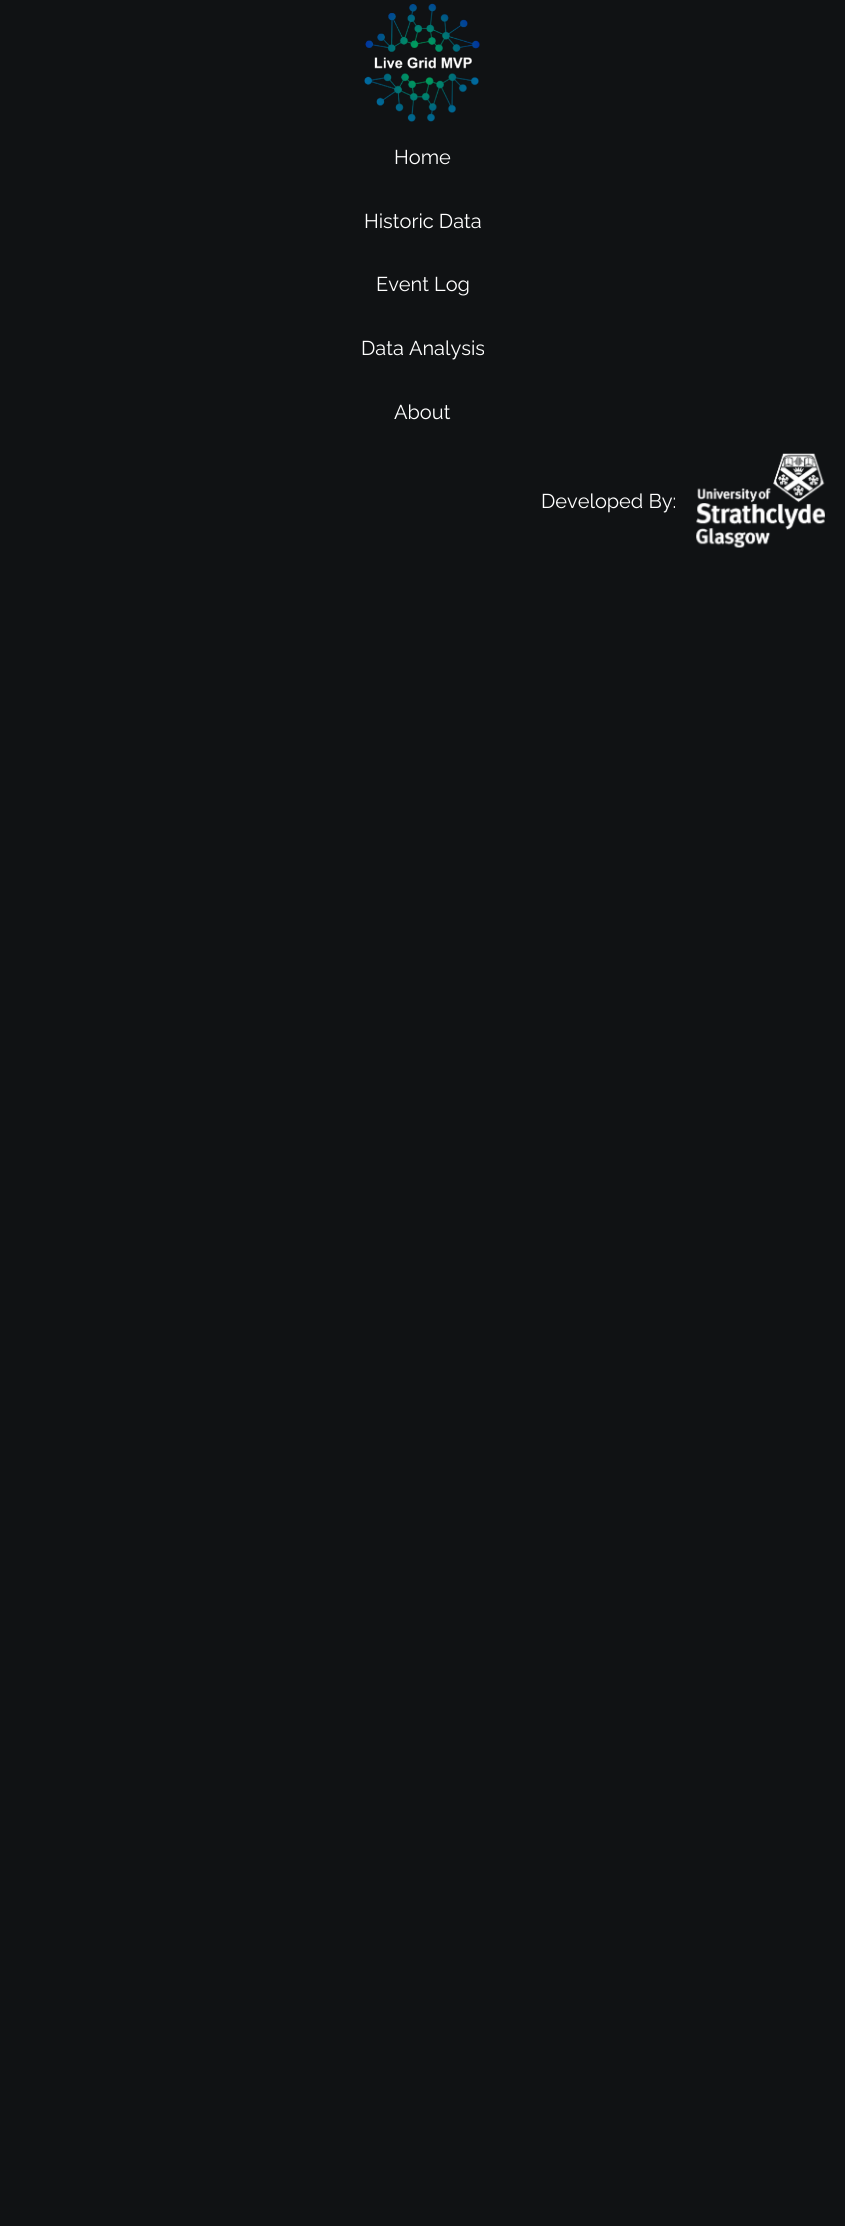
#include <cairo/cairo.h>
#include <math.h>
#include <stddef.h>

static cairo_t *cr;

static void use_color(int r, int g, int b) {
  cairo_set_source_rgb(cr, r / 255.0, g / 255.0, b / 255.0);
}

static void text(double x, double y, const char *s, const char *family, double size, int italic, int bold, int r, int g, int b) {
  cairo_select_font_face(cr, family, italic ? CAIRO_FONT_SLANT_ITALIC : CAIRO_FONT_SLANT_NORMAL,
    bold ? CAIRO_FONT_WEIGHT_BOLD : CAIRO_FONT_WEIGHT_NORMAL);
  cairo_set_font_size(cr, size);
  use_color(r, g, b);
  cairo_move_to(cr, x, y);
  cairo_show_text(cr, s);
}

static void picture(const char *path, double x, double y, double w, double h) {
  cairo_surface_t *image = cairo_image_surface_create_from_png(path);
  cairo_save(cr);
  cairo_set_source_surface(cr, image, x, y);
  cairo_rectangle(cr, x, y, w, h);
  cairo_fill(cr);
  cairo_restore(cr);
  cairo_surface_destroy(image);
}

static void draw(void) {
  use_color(16, 18, 20);
  cairo_paint(cr);
  picture("img_01.png", 364, 3, 116, 119);
  picture("img_02.png", 696, 453, 129, 95);
  text(394, 164, "Home", "Raleway", 20, 0, 0, 255, 255, 255);
  text(364, 228, "Historic Data", "Raleway", 20, 0, 0, 255, 255, 255);
  text(376, 291, "Event Log", "Raleway", 20, 0, 0, 255, 255, 255);
  text(361, 355, "Data Analysis", "Raleway", 20, 0, 0, 255, 255, 255);
  text(394, 419, "About", "Raleway", 20, 0, 0, 255, 255, 255);
  text(541, 508, "Developed By:", "Raleway", 20, 0, 0, 255, 255, 255);
}

int main(void) {
  cairo_surface_t *surface = cairo_image_surface_create(CAIRO_FORMAT_RGB24, 845, 2226);
  cr = cairo_create(surface);
  cairo_font_options_t *options = cairo_font_options_create();
  cairo_font_options_set_hint_metrics(options, CAIRO_HINT_METRICS_OFF);
  cairo_font_options_set_hint_style(options, CAIRO_HINT_STYLE_NONE);
  cairo_set_font_options(cr, options);
  cairo_set_miter_limit(cr, 4);
  draw();
  cairo_surface_write_to_png(surface, "out.png");
  cairo_font_options_destroy(options);
  cairo_destroy(cr);
  cairo_surface_destroy(surface);
  return 0;
}
